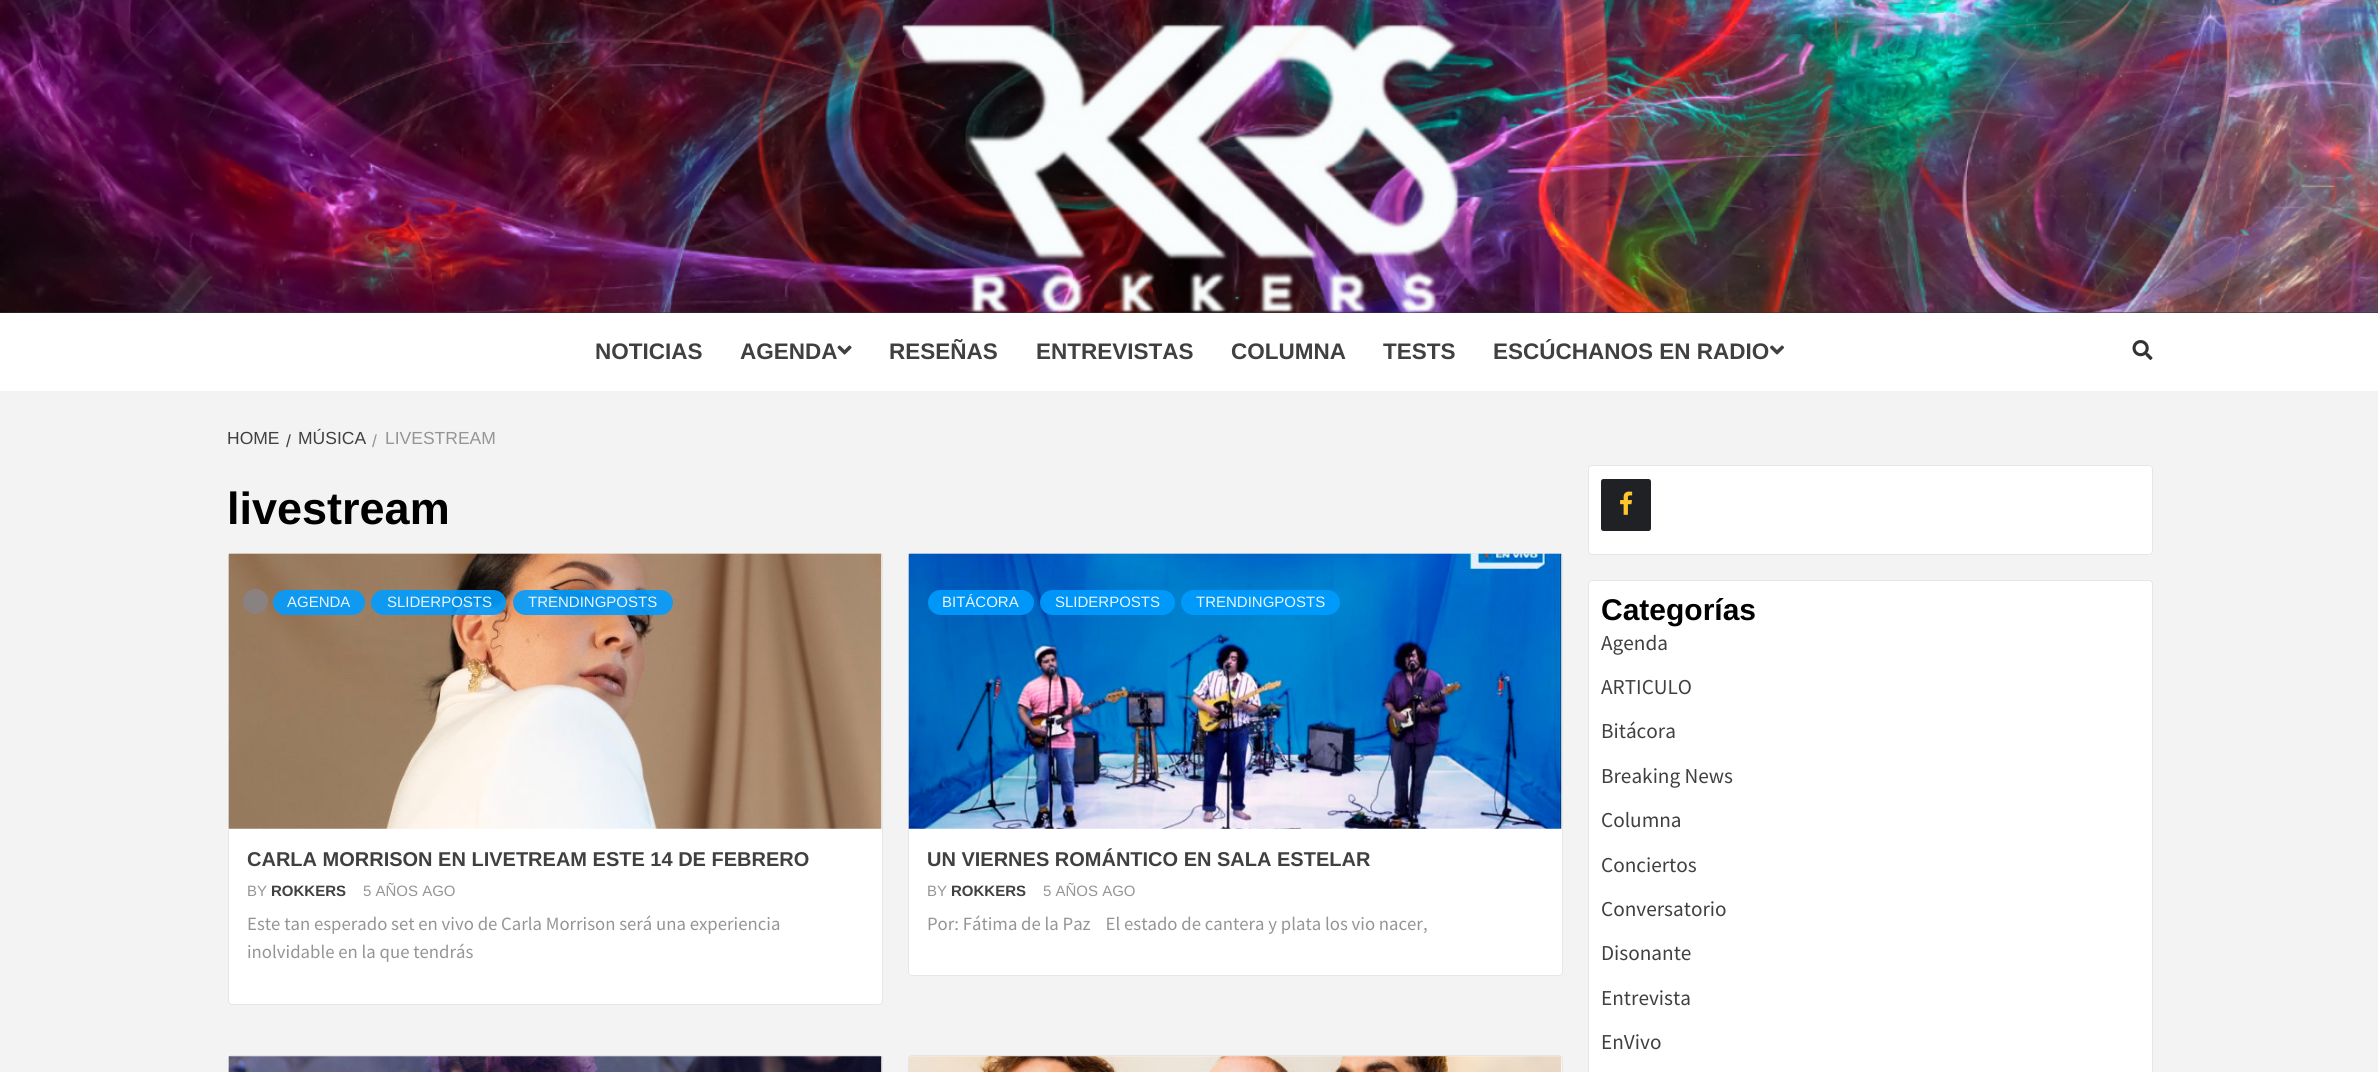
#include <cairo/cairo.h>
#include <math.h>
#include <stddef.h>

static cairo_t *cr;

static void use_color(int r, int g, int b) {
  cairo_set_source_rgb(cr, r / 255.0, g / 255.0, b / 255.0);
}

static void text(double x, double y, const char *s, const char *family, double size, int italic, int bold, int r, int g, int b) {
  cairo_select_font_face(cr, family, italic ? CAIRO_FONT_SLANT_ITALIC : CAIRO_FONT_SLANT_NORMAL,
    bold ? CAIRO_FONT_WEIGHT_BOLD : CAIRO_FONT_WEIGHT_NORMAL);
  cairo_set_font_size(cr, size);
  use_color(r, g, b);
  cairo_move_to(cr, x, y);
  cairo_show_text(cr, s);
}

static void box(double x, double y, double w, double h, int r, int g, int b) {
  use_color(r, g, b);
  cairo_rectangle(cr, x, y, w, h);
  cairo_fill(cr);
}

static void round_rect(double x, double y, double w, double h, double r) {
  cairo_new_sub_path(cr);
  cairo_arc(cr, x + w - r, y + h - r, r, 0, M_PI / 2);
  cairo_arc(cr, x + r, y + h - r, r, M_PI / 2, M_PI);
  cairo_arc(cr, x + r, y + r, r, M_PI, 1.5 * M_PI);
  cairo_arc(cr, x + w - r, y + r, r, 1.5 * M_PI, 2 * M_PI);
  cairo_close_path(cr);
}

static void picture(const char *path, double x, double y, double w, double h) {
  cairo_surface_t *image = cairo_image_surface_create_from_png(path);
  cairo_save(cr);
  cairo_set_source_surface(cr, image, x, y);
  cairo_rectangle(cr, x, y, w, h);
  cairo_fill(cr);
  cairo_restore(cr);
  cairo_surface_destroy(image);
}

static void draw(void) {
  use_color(243, 243, 243);
  cairo_paint(cr);
  box(0, 312, 2378, 1, 51, 51, 51);
  picture("img_01.png", 0, 0, 2378, 313);
  box(0, 313, 2378, 78, 255, 255, 255);
  picture("img_03.png", 1770, 345, 14, 10);
  picture("img_04.png", 2132, 340, 21, 20);
  round_rect(228, 553, 655, 452, 4);
  cairo_fill(cr);
  round_rect(228.5, 553.5, 654, 451, 3.5);
  cairo_set_source_rgba(cr, 0, 0.004, 0.004, 0.1);
  cairo_set_line_width(cr, 1);
  cairo_stroke(cr);
  picture("img_05.png", 228, 553, 654, 276);
  use_color(138, 129, 129);
  cairo_arc(cr, 255.5, 601.5, 12.5, 0, 2 * M_PI);
  cairo_fill(cr);
  cairo_set_source_rgba(cr, 0, 0.612, 1, 0.9);
  round_rect(273, 590, 92, 25, 12.5);
  cairo_fill(cr);
  round_rect(371, 590, 135, 25, 12.5);
  cairo_fill(cr);
  round_rect(513, 590, 160, 25, 12.5);
  cairo_fill(cr);
  use_color(255, 255, 255);
  round_rect(908, 553, 655, 423, 4);
  cairo_fill(cr);
  round_rect(908.5, 553.5, 654, 422, 3.5);
  cairo_set_source_rgba(cr, 0, 0.004, 0.004, 0.1);
  cairo_stroke(cr);
  picture("img_06.png", 908, 553, 654, 276);
  cairo_set_source_rgba(cr, 0, 0.612, 1, 0.9);
  round_rect(928, 590, 106, 25, 12.5);
  cairo_fill(cr);
  round_rect(1040, 590, 135, 25, 12.5);
  cairo_fill(cr);
  round_rect(1181, 590, 159, 25, 12.5);
  cairo_fill(cr);
  use_color(255, 255, 255);
  round_rect(228, 1055, 655, 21, 4);
  cairo_fill(cr);
  round_rect(228.5, 1055.5, 654, 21, 3.5);
  cairo_set_source_rgba(cr, 0, 0.004, 0.004, 0.1);
  cairo_stroke(cr);
  picture("img_07.png", 228, 1056, 654, 16);
  use_color(255, 255, 255);
  round_rect(908, 1055, 655, 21, 4);
  cairo_fill(cr);
  round_rect(908.5, 1055.5, 654, 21, 3.5);
  cairo_set_source_rgba(cr, 0, 0.004, 0.004, 0.1);
  cairo_stroke(cr);
  picture("img_08.png", 908, 1056, 654, 16);
  use_color(255, 255, 255);
  round_rect(1588, 465, 565, 90, 4);
  cairo_fill(cr);
  round_rect(1588.5, 465.5, 564, 89, 3.5);
  cairo_set_source_rgba(cr, 0, 0.004, 0.004, 0.1);
  cairo_stroke(cr);
  use_color(32, 33, 37);
  round_rect(1601, 479, 50, 52, 2.5);
  cairo_fill(cr);
  picture("img_09.png", 1620, 491, 13, 24);
  use_color(255, 255, 255);
  round_rect(1588, 580, 565, 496, 4);
  cairo_fill(cr);
  round_rect(1588.5, 580.5, 564, 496, 3.5);
  cairo_set_source_rgba(cr, 0, 0.004, 0.004, 0.1);
  cairo_stroke(cr);
  text(595, 359, "NOTICIAS", "Liberation Sans", 22.5, 0, 1, 64, 64, 64);
  text(740, 359, "AGENDA", "Liberation Sans", 22.5, 0, 1, 64, 64, 64);
  picture("img_02.png", 837, 345, 15, 10);
  text(889, 359, "RESEÑAS", "Liberation Sans", 22.5, 0, 1, 64, 64, 64);
  text(1036, 359, "ENTREVISTAS", "Liberation Sans", 22.5, 0, 1, 64, 64, 64);
  text(1231, 359, "COLUMNA", "Liberation Sans", 22.5, 0, 1, 64, 64, 64);
  text(1383, 359, "TESTS", "Liberation Sans", 22.5, 0, 1, 64, 64, 64);
  text(1493, 359, "ESCÚCHANOS EN RADIO", "Liberation Sans", 22.5, 0, 1, 64, 64, 64);
  text(227, 444, "HOME", "Liberation Sans", 17.5, 0, 0, 64, 64, 64);
  text(286, 447, "/", "Liberation Sans", 17.5, 0, 0, 64, 64, 64);
  text(298, 444, "MÚSICA", "Liberation Sans", 17.5, 0, 0, 64, 64, 64);
  text(372, 447, "/", "Liberation Sans", 17.5, 0, 0, 149, 149, 149);
  text(385, 444, "LIVESTREAM", "Liberation Sans", 17.5, 0, 0, 149, 149, 149);
  text(227, 524, "livestream", "Liberation Sans", 45, 0, 1, 0, 0, 0);
  text(287, 607, "AGENDA", "Liberation Sans", 15, 0, 0, 231, 245, 253);
  text(387, 607, "SLIDERPOSTS", "Liberation Sans", 15, 0, 0, 231, 245, 253);
  text(528, 607, "TRENDINGPOSTS", "Liberation Sans", 15, 0, 0, 231, 245, 253);
  text(247, 866, "CARLA MORRISON EN LIVETREAM ESTE 14 DE FEBRERO", "Liberation Sans", 20, 0, 1, 64, 64, 64);
  text(247, 896, "BY", "Liberation Sans", 15, 0, 0, 149, 149, 149);
  text(271, 896, "ROKKERS", "Liberation Sans", 15, 0, 1, 64, 64, 64);
  text(363, 896, "5 AÑOS AGO", "Liberation Sans", 15, 0, 0, 149, 149, 149);
  text(247, 930, "Este tan esperado set en vivo de Carla Morrison será una experiencia", "Source Sans Pro", 18.75, 0, 0, 149, 149, 149);
  text(247, 958, "inolvidable en la que tendrás", "Source Sans Pro", 18.75, 0, 0, 149, 149, 149);
  text(942, 607, "BITÁCORA", "Liberation Sans", 15, 0, 0, 231, 245, 253);
  text(1055, 607, "SLIDERPOSTS", "Liberation Sans", 15, 0, 0, 231, 245, 253);
  text(1196, 607, "TRENDINGPOSTS", "Liberation Sans", 15, 0, 0, 231, 245, 253);
  text(927, 866, "UN VIERNES ROMÁNTICO EN SALA ESTELAR", "Liberation Sans", 20, 0, 1, 64, 64, 64);
  text(927, 896, "BY", "Liberation Sans", 15, 0, 0, 149, 149, 149);
  text(951, 896, "ROKKERS", "Liberation Sans", 15, 0, 1, 64, 64, 64);
  text(1043, 896, "5 AÑOS AGO", "Liberation Sans", 15, 0, 0, 149, 149, 149);
  text(927, 930, "Por: Fátima de la Paz    El estado de cantera y plata los vio nacer,", "Source Sans Pro", 18.75, 0, 0, 149, 149, 149);
  text(1601, 620, "Categorías", "Liberation Sans", 30, 0, 1, 0, 0, 0);
  text(1601, 650, "Agenda", "Source Sans Pro", 21.25, 0, 0, 64, 64, 64);
  text(1601, 694, "ARTICULO", "Source Sans Pro", 21.25, 0, 0, 64, 64, 64);
  text(1601, 738, "Bitácora", "Source Sans Pro", 21.25, 0, 0, 64, 64, 64);
  text(1601, 783, "Breaking News", "Source Sans Pro", 21.25, 0, 0, 64, 64, 64);
  text(1601, 827, "Columna", "Source Sans Pro", 21.25, 0, 0, 64, 64, 64);
  text(1601, 872, "Conciertos", "Source Sans Pro", 21.25, 0, 0, 64, 64, 64);
  text(1601, 916, "Conversatorio", "Source Sans Pro", 21.25, 0, 0, 64, 64, 64);
  text(1601, 960, "Disonante", "Source Sans Pro", 21.25, 0, 0, 64, 64, 64);
  text(1601, 1005, "Entrevista", "Source Sans Pro", 21.25, 0, 0, 64, 64, 64);
  text(1601, 1049, "EnVivo", "Source Sans Pro", 21.25, 0, 0, 64, 64, 64);
}

int main(void) {
  cairo_surface_t *surface = cairo_image_surface_create(CAIRO_FORMAT_RGB24, 2378, 1072);
  cr = cairo_create(surface);
  cairo_font_options_t *options = cairo_font_options_create();
  cairo_font_options_set_hint_metrics(options, CAIRO_HINT_METRICS_OFF);
  cairo_font_options_set_hint_style(options, CAIRO_HINT_STYLE_NONE);
  cairo_set_font_options(cr, options);
  cairo_set_miter_limit(cr, 4);
  draw();
  cairo_surface_write_to_png(surface, "out.png");
  cairo_font_options_destroy(options);
  cairo_destroy(cr);
  cairo_surface_destroy(surface);
  return 0;
}
